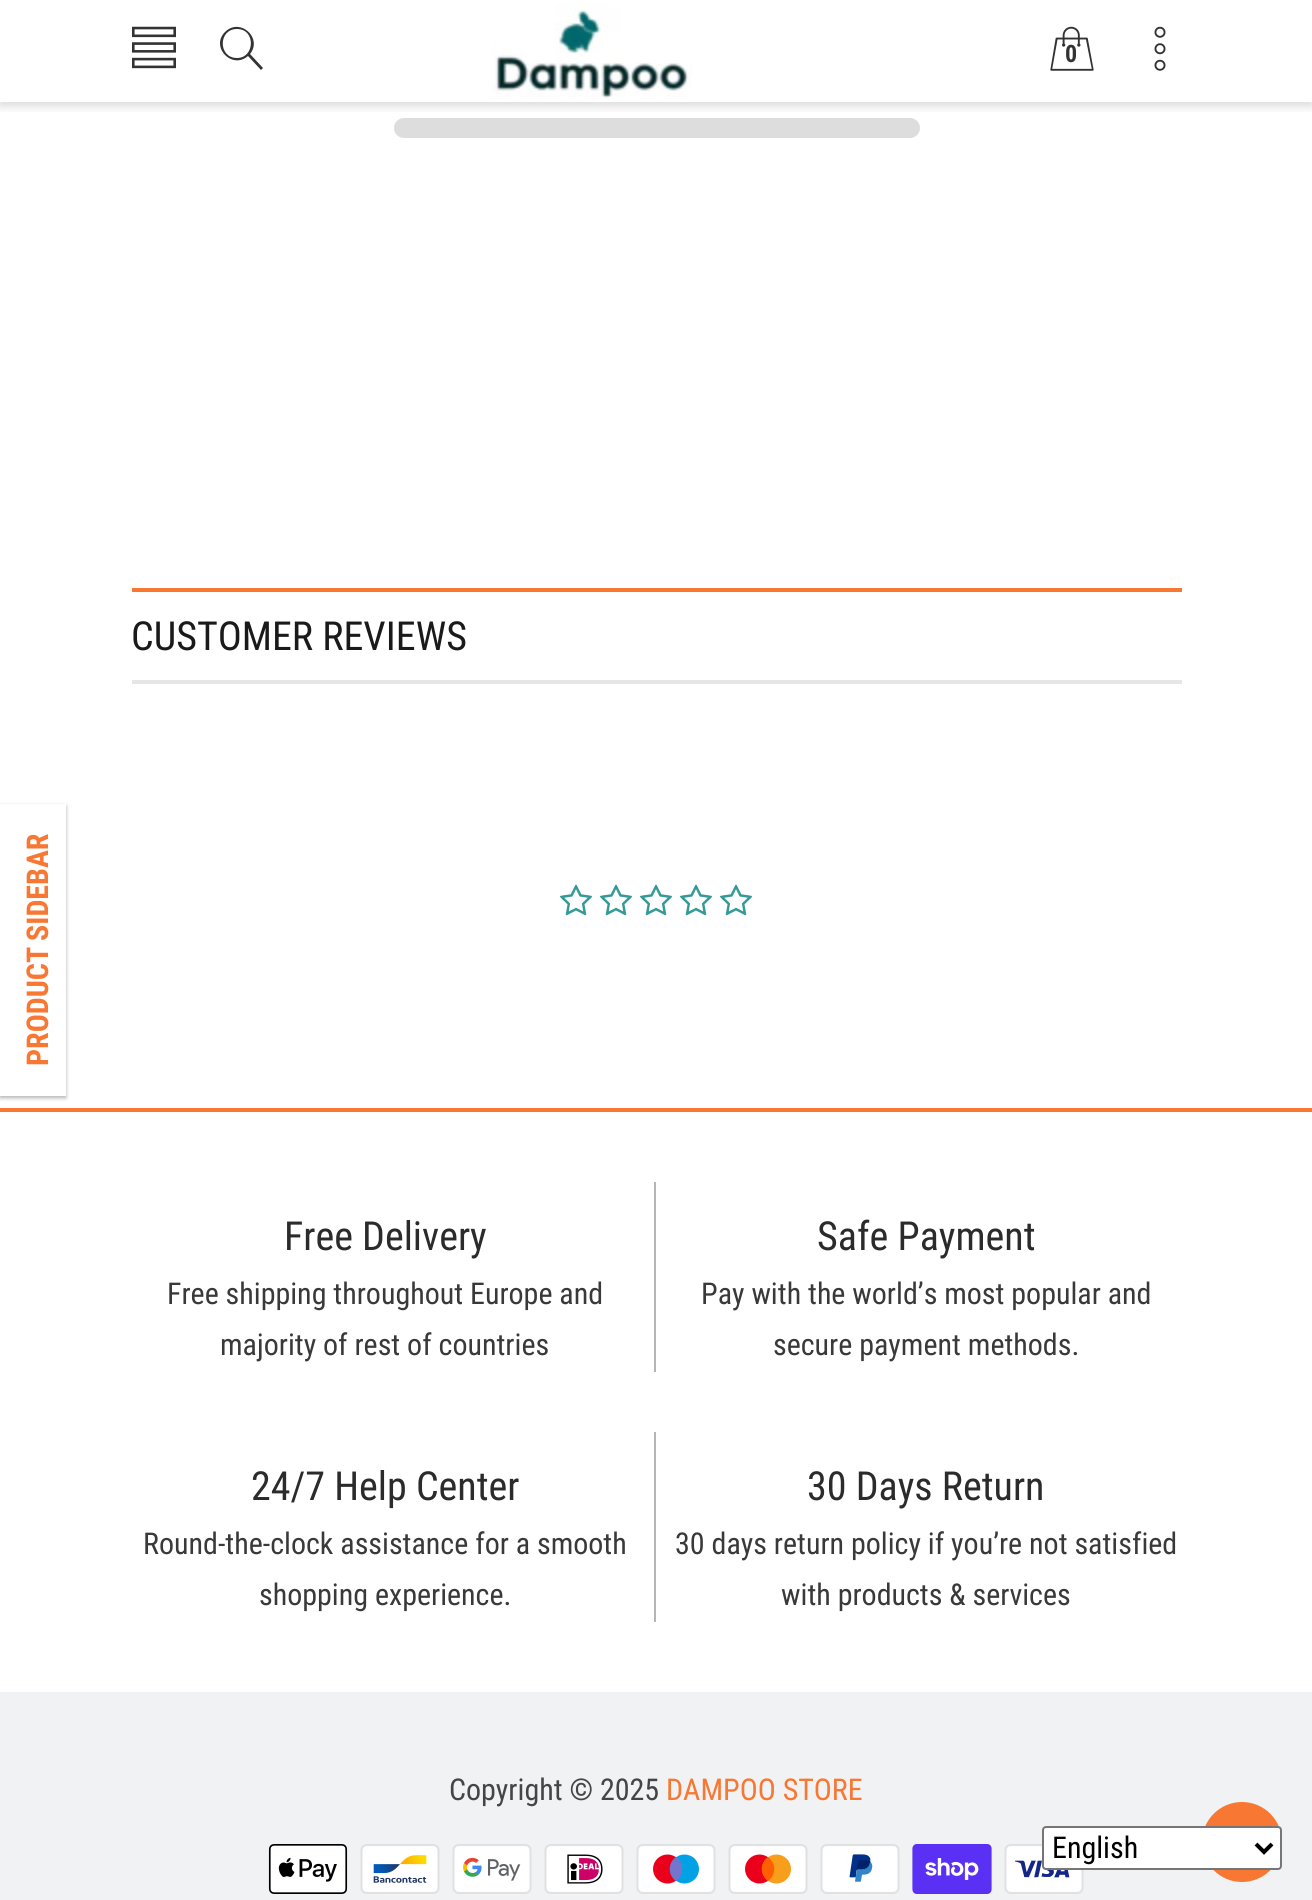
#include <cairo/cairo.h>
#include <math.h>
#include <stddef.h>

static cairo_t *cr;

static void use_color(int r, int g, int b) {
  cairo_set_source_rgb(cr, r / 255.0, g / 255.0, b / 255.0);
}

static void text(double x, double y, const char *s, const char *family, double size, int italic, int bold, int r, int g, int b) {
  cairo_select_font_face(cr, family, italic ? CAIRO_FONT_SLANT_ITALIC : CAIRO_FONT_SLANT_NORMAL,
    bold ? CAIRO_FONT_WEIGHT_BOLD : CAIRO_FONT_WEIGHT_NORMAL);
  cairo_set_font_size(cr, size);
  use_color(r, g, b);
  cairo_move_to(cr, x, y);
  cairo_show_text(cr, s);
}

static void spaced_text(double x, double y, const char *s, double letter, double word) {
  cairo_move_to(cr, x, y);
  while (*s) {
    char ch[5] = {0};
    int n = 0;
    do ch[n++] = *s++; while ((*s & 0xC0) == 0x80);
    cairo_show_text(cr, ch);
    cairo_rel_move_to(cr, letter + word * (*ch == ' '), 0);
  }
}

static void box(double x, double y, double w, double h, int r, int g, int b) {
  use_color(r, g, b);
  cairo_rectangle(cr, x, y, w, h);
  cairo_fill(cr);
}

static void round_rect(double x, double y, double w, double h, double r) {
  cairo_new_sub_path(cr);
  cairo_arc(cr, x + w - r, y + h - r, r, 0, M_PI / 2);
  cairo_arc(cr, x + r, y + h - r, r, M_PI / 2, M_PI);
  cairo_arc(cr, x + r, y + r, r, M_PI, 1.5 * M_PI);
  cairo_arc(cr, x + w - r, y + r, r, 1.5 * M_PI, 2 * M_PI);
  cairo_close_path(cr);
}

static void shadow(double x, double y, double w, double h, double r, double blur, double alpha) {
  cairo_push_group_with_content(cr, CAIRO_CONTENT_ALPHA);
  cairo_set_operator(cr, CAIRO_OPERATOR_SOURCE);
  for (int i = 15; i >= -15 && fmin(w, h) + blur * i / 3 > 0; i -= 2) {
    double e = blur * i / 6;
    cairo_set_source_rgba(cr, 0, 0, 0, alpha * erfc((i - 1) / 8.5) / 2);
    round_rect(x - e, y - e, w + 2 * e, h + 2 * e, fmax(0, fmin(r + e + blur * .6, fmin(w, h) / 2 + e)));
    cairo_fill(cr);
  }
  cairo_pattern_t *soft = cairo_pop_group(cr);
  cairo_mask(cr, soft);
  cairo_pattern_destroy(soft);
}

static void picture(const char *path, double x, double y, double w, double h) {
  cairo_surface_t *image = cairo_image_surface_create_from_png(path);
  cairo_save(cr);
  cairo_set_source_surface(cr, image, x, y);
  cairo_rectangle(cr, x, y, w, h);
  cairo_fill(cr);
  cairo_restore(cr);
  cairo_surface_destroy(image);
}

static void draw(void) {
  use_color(255, 255, 255);
  cairo_paint(cr);
  use_color(221, 221, 221);
  round_rect(394, 118, 526, 20, 10);
  cairo_fill(cr);
  cairo_save(cr);
  cairo_rectangle(cr, 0, 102, 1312, 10);
  cairo_clip(cr);
  use_color(0, 0, 0);
  shadow(0, 4, 1312, 102, 0, 5, 0.15);
  cairo_restore(cr);
  picture("img_01.png", 132, 26, 44, 43);
  use_color(51, 51, 51);
  cairo_new_path(cr);
  cairo_move_to(cr, 263, 68);
  cairo_line_to(cr, 250, 54);
  cairo_curve_to(cr, 263, 38, 240, 17, 225, 32);
  cairo_curve_to(cr, 210, 47, 232, 70, 248, 56);
  cairo_line_to(cr, 261, 70);
  cairo_close_path(cr);
  cairo_move_to(cr, 237, 58);
  cairo_curve_to(cr, 218, 58, 218, 29, 237, 29);
  cairo_curve_to(cr, 256, 29, 255, 58, 237, 58);
  cairo_close_path(cr);
  cairo_fill(cr);
  picture("img_02.png", 492, 4, 200, 95);
  picture("img_03.png", 1050, 26, 44, 45);
  picture("img_04.png", 1154, 26, 12, 45);
  box(132, 588, 1050, 4, 248, 119, 51);
  box(132, 680, 1050, 4, 230, 230, 230);
  cairo_save(cr);
  cairo_set_fill_rule(cr, CAIRO_FILL_RULE_EVEN_ODD);
  cairo_new_path(cr);
  cairo_move_to(cr, 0, 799);
  cairo_line_to(cr, 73, 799);
  cairo_line_to(cr, 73, 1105);
  cairo_line_to(cr, 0, 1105);
  cairo_close_path(cr);
  cairo_move_to(cr, 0, 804);
  cairo_line_to(cr, 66, 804);
  cairo_line_to(cr, 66, 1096);
  cairo_line_to(cr, 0, 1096);
  cairo_close_path(cr);
  cairo_clip(cr);
  use_color(0, 0, 0);
  shadow(0, 806, 66, 292, 0, 2, 0.3);
  cairo_restore(cr);
  cairo_set_source_rgba(cr, 1, 1, 1, 0.95);
  cairo_rectangle(cr, 1, 1095, 64, 1);
  cairo_fill(cr);
  picture("img_05.png", 560, 884, 32, 32);
  picture("img_05.png", 600, 884, 32, 32);
  picture("img_05.png", 640, 884, 32, 32);
  picture("img_05.png", 680, 884, 32, 32);
  picture("img_05.png", 720, 884, 32, 32);
  box(0, 1108, 1312, 4, 248, 119, 51);
  box(654, 1182, 2, 190, 182, 180, 180);
  box(654, 1432, 2, 190, 182, 180, 180);
  box(0, 1692, 1312, 208, 241, 242, 244);
  picture("img_06.png", 268, 1844, 80, 50);
  picture("img_07.png", 360, 1844, 80, 50);
  picture("img_08.png", 452, 1844, 80, 50);
  picture("img_09.png", 544, 1844, 80, 50);
  picture("img_10.png", 636, 1844, 80, 50);
  picture("img_11.png", 728, 1844, 80, 50);
  picture("img_12.png", 820, 1844, 80, 50);
  picture("img_13.png", 912, 1844, 80, 50);
  picture("img_14.png", 1004, 1844, 80, 50);
  use_color(248, 119, 51);
  cairo_arc(cr, 1242, 1842, 40, 0, 2 * M_PI);
  cairo_fill(cr);
  use_color(255, 255, 255);
  round_rect(1043, 1827, 238, 42, 3);
  cairo_fill_preserve(cr);
  use_color(118, 118, 118);
  cairo_stroke(cr);
  cairo_new_path(cr);
  cairo_move_to(cr, 1256, 1844);
  cairo_line_to(cr, 1264, 1852);
  cairo_line_to(cr, 1272, 1844);
  use_color(0, 0, 0);
  cairo_set_line_width(cr, 4);
  cairo_stroke(cr);
  text(1065, 62, "0", "Roboto Condensed", 24, 0, 1, 51, 51, 51);
  text(131, 650, "CUSTOMER REVIEWS", "Roboto Condensed", 40, 0, 0, 26, 26, 26);
  cairo_select_font_face(cr, "Roboto Condensed", CAIRO_FONT_SLANT_NORMAL, CAIRO_FONT_WEIGHT_BOLD);
  cairo_set_font_size(cr, 30);
  use_color(248, 119, 51);
  cairo_save(cr);
  cairo_translate(cr, 48, 1066);
  cairo_rotate(cr, -90 * M_PI / 180);
  spaced_text(0, 0, "PRODUCT SIDEBAR", 0, -1);
  cairo_restore(cr);
  text(284, 1250, "Free Delivery", "Roboto Condensed", 40, 0, 0, 43, 43, 43);
  text(167, 1304, "Free shipping throughout Europe and", "Roboto Condensed", 30, 0, 0, 57, 57, 57);
  text(220, 1355, "majority of rest of countries", "Roboto Condensed", 30, 0, 0, 57, 57, 57);
  text(817, 1250, "Safe Payment", "Roboto Condensed", 40, 0, 0, 43, 43, 43);
  text(701, 1304, "Pay with the world’s most popular and", "Roboto Condensed", 30, 0, 0, 57, 57, 57);
  text(773, 1355, "secure payment methods.", "Roboto Condensed", 30, 0, 0, 57, 57, 57);
  text(251, 1500, "24/7 Help Center", "Roboto Condensed", 40, 0, 0, 43, 43, 43);
  text(143, 1554, "Round-the-clock assistance for a smooth", "Roboto Condensed", 30, 0, 0, 57, 57, 57);
  text(259, 1605, "shopping experience.", "Roboto Condensed", 30, 0, 0, 57, 57, 57);
  text(807, 1500, "30 Days Return", "Roboto Condensed", 40, 0, 0, 43, 43, 43);
  text(675, 1554, "30 days return policy if you’re not satisfied", "Roboto Condensed", 30, 0, 0, 57, 57, 57);
  text(781, 1605, "with products & services", "Roboto Condensed", 30, 0, 0, 57, 57, 57);
  text(449, 1800, "Copyright © 2025", "Roboto Condensed", 30, 0, 0, 69, 69, 69);
  text(666, 1800, "DAMPOO STORE", "Roboto Condensed", 30, 0, 0, 248, 119, 51);
  text(1052, 1858, "English", "Roboto Condensed", 30, 0, 0, 0, 0, 0);
}

int main(void) {
  cairo_surface_t *surface = cairo_image_surface_create(CAIRO_FORMAT_RGB24, 1312, 1900);
  cr = cairo_create(surface);
  cairo_font_options_t *options = cairo_font_options_create();
  cairo_font_options_set_hint_metrics(options, CAIRO_HINT_METRICS_OFF);
  cairo_font_options_set_hint_style(options, CAIRO_HINT_STYLE_NONE);
  cairo_set_font_options(cr, options);
  cairo_set_miter_limit(cr, 4);
  draw();
  cairo_surface_write_to_png(surface, "out.png");
  cairo_font_options_destroy(options);
  cairo_destroy(cr);
  cairo_surface_destroy(surface);
  return 0;
}
